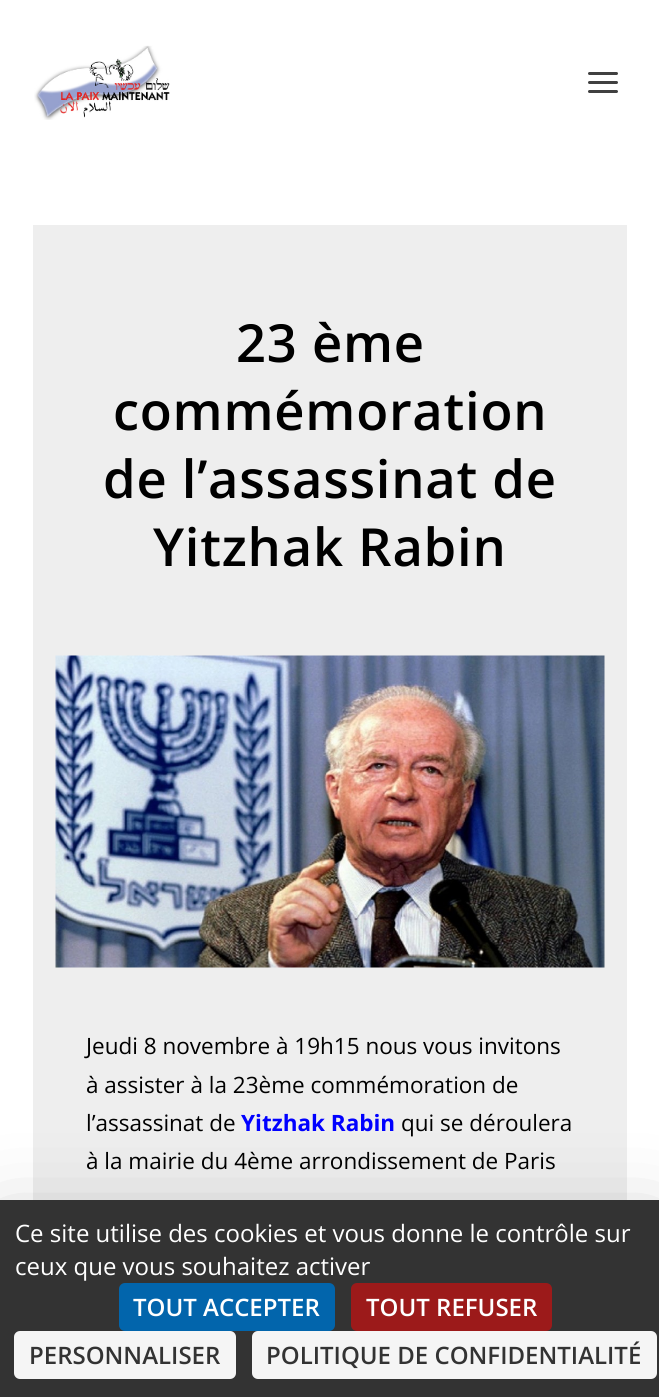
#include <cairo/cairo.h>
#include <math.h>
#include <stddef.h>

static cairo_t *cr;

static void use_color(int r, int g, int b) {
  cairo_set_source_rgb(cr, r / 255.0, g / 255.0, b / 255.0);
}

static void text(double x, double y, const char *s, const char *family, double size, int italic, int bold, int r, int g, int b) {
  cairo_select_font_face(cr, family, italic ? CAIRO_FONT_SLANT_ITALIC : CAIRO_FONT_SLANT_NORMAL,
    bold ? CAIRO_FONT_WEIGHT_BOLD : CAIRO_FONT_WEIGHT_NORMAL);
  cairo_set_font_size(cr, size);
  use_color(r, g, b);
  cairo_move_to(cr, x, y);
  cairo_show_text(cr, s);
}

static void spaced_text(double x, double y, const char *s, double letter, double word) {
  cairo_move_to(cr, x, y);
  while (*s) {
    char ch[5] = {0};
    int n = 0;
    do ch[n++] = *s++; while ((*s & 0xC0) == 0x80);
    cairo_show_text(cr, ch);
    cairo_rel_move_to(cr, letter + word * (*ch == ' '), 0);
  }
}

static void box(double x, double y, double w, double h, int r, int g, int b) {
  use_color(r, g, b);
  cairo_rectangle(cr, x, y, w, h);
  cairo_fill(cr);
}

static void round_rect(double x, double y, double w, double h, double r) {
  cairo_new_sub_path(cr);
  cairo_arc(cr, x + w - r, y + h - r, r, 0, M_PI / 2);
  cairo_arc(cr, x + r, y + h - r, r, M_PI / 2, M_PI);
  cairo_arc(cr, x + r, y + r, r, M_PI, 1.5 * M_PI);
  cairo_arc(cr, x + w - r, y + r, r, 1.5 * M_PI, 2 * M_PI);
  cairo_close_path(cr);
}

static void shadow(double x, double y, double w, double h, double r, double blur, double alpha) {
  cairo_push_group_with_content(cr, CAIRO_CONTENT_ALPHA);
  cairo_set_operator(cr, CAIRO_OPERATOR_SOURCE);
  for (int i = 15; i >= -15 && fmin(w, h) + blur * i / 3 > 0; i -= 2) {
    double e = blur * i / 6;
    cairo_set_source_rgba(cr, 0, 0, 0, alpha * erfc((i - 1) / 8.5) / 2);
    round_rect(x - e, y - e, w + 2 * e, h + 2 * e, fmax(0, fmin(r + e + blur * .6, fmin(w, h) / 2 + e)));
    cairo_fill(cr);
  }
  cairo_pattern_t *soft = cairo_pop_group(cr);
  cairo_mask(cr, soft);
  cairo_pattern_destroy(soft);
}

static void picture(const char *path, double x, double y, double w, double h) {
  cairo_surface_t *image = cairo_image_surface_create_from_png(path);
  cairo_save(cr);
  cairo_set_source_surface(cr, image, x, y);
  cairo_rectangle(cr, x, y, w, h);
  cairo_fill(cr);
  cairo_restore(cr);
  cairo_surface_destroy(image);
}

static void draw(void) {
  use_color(255, 255, 255);
  cairo_paint(cr);
  picture("img_01.png", 34, 45, 136, 75);
  use_color(64, 64, 64);
  round_rect(588, 72, 30, 3, 1.5);
  cairo_fill(cr);
  round_rect(588, 81, 30, 3, 1.5);
  cairo_fill(cr);
  round_rect(588, 90, 30, 3, 1.5);
  cairo_fill(cr);
  box(33, 225, 594, 975, 238, 238, 238);
  picture("img_02.png", 55, 655, 550, 313);
  use_color(0, 0, 0);
  shadow(0, 1230, 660, 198, 0, 45, 0.25);
  box(0, 1200, 659, 197, 51, 51, 51);
  use_color(2, 101, 172);
  round_rect(119, 1283, 216, 48, 6);
  cairo_fill(cr);
  use_color(156, 26, 26);
  round_rect(351, 1283, 201, 48, 6);
  cairo_fill(cr);
  use_color(245, 245, 245);
  round_rect(14, 1331, 222, 48, 6);
  cairo_fill(cr);
  round_rect(252, 1331, 405, 48, 6);
  cairo_fill(cr);
  cairo_select_font_face(cr, "Open Sans SemiBold", CAIRO_FONT_SLANT_NORMAL, CAIRO_FONT_WEIGHT_NORMAL);
  cairo_set_font_size(cr, 52.5);
  use_color(0, 0, 0);
  spaced_text(236, 362, "23 ème", 0.75, 0);
  spaced_text(113, 430, "commémoration", 0.75, 0);
  spaced_text(103, 498, "de l’assassinat de", 0.75, 0);
  spaced_text(153, 566, "Yitzhak Rabin", 0.75, 0);
  text(86, 1054, "Jeudi 8 novembre à 19h15 nous vous invitons", "Open Sans", 22.5, 0, 0, 0, 0, 0);
  text(86, 1093, "à assister à la 23ème commémoration de", "Open Sans", 22.5, 0, 0, 0, 0, 0);
  text(86, 1131, "l’assassinat de", "Open Sans", 22.5, 0, 0, 0, 0, 0);
  text(241, 1131, "Yitzhak Rabin", "Open Sans", 22.5, 0, 1, 0, 0, 255);
  text(401, 1131, "qui se déroulera", "Open Sans", 22.5, 0, 0, 0, 0, 0);
  text(86, 1169, "à la mairie du 4ème arrondissement de Paris", "Open Sans", 22.5, 0, 0, 0, 0, 0);
  text(15, 1242, "Ce site utilise des cookies et vous donne le contrôle sur", "Open Sans", 24, 0, 0, 255, 255, 255);
  text(15, 1275, "ceux que vous souhaitez activer", "Open Sans", 24, 0, 0, 255, 255, 255);
  text(133, 1316, "TOUT ACCEPTER", "Open Sans SemiBold", 24, 0, 0, 255, 255, 255);
  text(366, 1316, "TOUT REFUSER", "Open Sans SemiBold", 24, 0, 0, 255, 255, 255);
  text(29, 1364, "PERSONNALISER", "Open Sans SemiBold", 24, 0, 0, 51, 51, 51);
  text(266, 1364, "POLITIQUE DE CONFIDENTIALITÉ", "Open Sans SemiBold", 24, 0, 0, 51, 51, 51);
}

int main(void) {
  cairo_surface_t *surface = cairo_image_surface_create(CAIRO_FORMAT_RGB24, 659, 1397);
  cr = cairo_create(surface);
  cairo_font_options_t *options = cairo_font_options_create();
  cairo_font_options_set_hint_metrics(options, CAIRO_HINT_METRICS_OFF);
  cairo_font_options_set_hint_style(options, CAIRO_HINT_STYLE_NONE);
  cairo_set_font_options(cr, options);
  cairo_set_miter_limit(cr, 4);
  draw();
  cairo_surface_write_to_png(surface, "out.png");
  cairo_font_options_destroy(options);
  cairo_destroy(cr);
  cairo_surface_destroy(surface);
  return 0;
}
